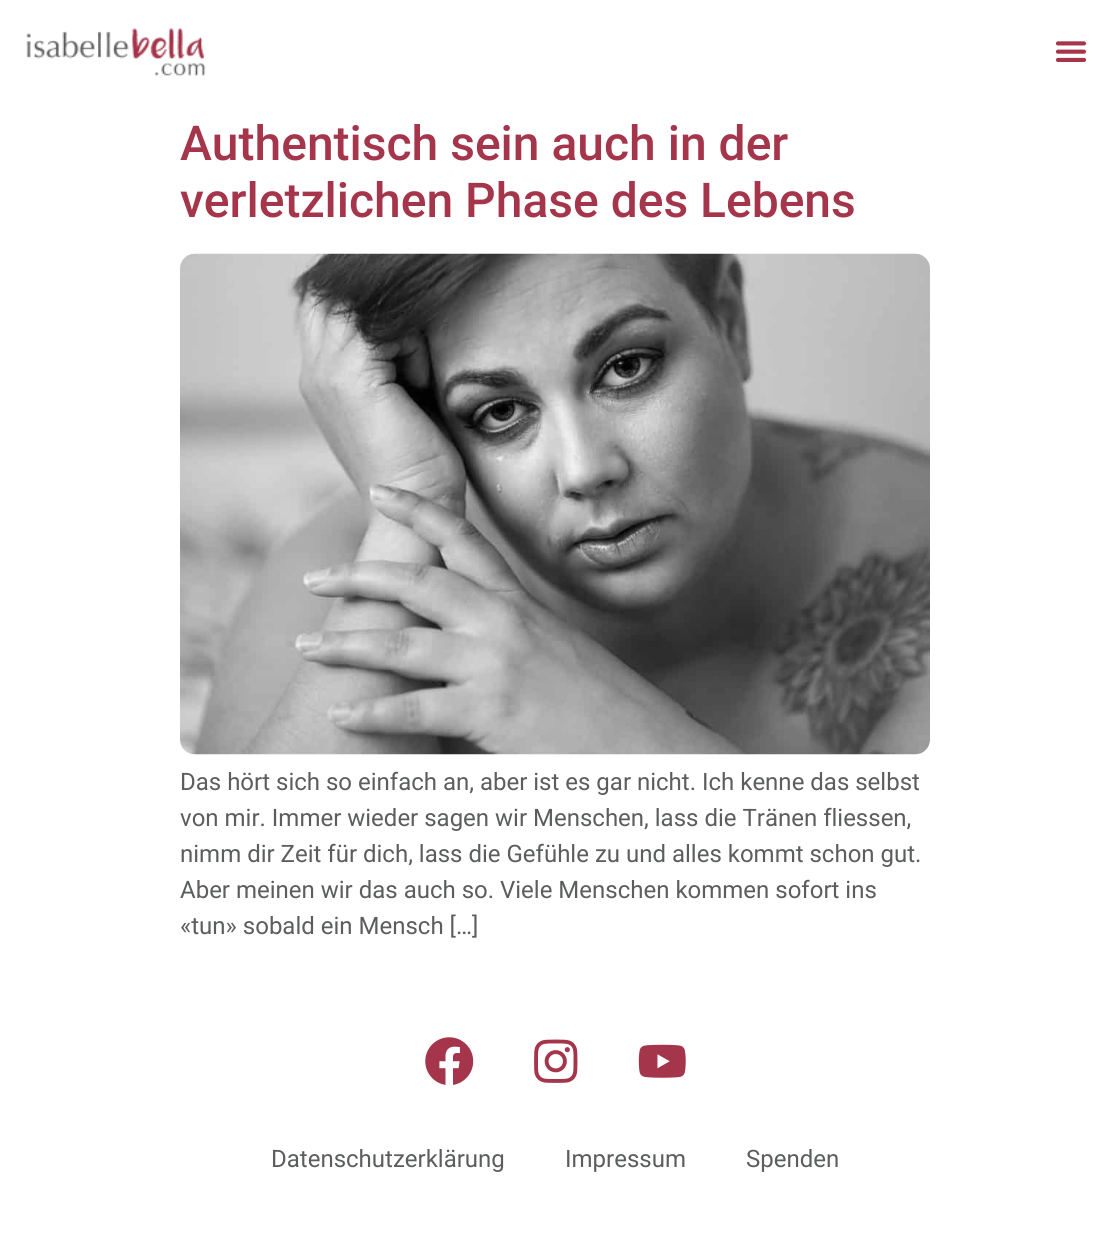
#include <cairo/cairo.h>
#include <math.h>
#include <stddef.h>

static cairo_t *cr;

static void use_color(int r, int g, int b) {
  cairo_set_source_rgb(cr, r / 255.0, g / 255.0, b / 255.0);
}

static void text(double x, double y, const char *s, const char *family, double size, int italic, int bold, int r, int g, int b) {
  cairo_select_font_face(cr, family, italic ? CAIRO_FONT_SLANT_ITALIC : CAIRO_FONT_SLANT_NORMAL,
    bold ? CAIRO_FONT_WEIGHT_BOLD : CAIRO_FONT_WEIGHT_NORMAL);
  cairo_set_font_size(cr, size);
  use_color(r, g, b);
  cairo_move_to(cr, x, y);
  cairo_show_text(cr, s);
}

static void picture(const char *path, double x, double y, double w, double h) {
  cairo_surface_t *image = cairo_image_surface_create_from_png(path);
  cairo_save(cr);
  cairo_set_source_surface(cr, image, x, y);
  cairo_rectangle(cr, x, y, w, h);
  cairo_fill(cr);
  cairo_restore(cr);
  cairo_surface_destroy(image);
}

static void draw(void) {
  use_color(255, 255, 255);
  cairo_paint(cr);
  picture("img_01.png", 26, 28, 180, 48);
  picture("img_02.png", 1055, 41, 32, 21);
  picture("img_03.png", 180, 253, 750, 502);
  picture("img_04.png", 425, 1037, 49, 48);
  picture("img_05.png", 534, 1039, 44, 44);
  picture("img_06.png", 638, 1044, 48, 34);
  text(180, 160, "Authentisch sein auch in der", "Roboto Medium", 48, 0, 0, 165, 53, 75);
  text(180, 217, "verletzlichen Phase des Lebens", "Roboto Medium", 48, 0, 0, 165, 53, 75);
  text(180, 790, "Das hört sich so einfach an, aber ist es gar nicht. Ich kenne das selbst", "Roboto", 24, 0, 0, 92, 94, 94);
  text(180, 826, "von mir. Immer wieder sagen wir Menschen, lass die Tränen fliessen,", "Roboto", 24, 0, 0, 92, 94, 94);
  text(180, 862, "nimm dir Zeit für dich, lass die Gefühle zu und alles kommt schon gut.", "Roboto", 24, 0, 0, 92, 94, 94);
  text(180, 898, "Aber meinen wir das auch so. Viele Menschen kommen sofort ins", "Roboto", 24, 0, 0, 92, 94, 94);
  text(180, 934, "«tun» sobald ein Mensch […]", "Roboto", 24, 0, 0, 92, 94, 94);
  text(271, 1167, "Datenschutzerklärung", "Roboto", 24, 0, 0, 92, 94, 94);
  text(565, 1167, "Impressum", "Roboto", 24, 0, 0, 92, 94, 94);
  text(746, 1167, "Spenden", "Roboto", 24, 0, 0, 92, 94, 94);
}

int main(void) {
  cairo_surface_t *surface = cairo_image_surface_create(CAIRO_FORMAT_RGB24, 1109, 1259);
  cr = cairo_create(surface);
  cairo_font_options_t *options = cairo_font_options_create();
  cairo_font_options_set_hint_metrics(options, CAIRO_HINT_METRICS_OFF);
  cairo_font_options_set_hint_style(options, CAIRO_HINT_STYLE_NONE);
  cairo_set_font_options(cr, options);
  cairo_set_miter_limit(cr, 4);
  draw();
  cairo_surface_write_to_png(surface, "out.png");
  cairo_font_options_destroy(options);
  cairo_destroy(cr);
  cairo_surface_destroy(surface);
  return 0;
}
